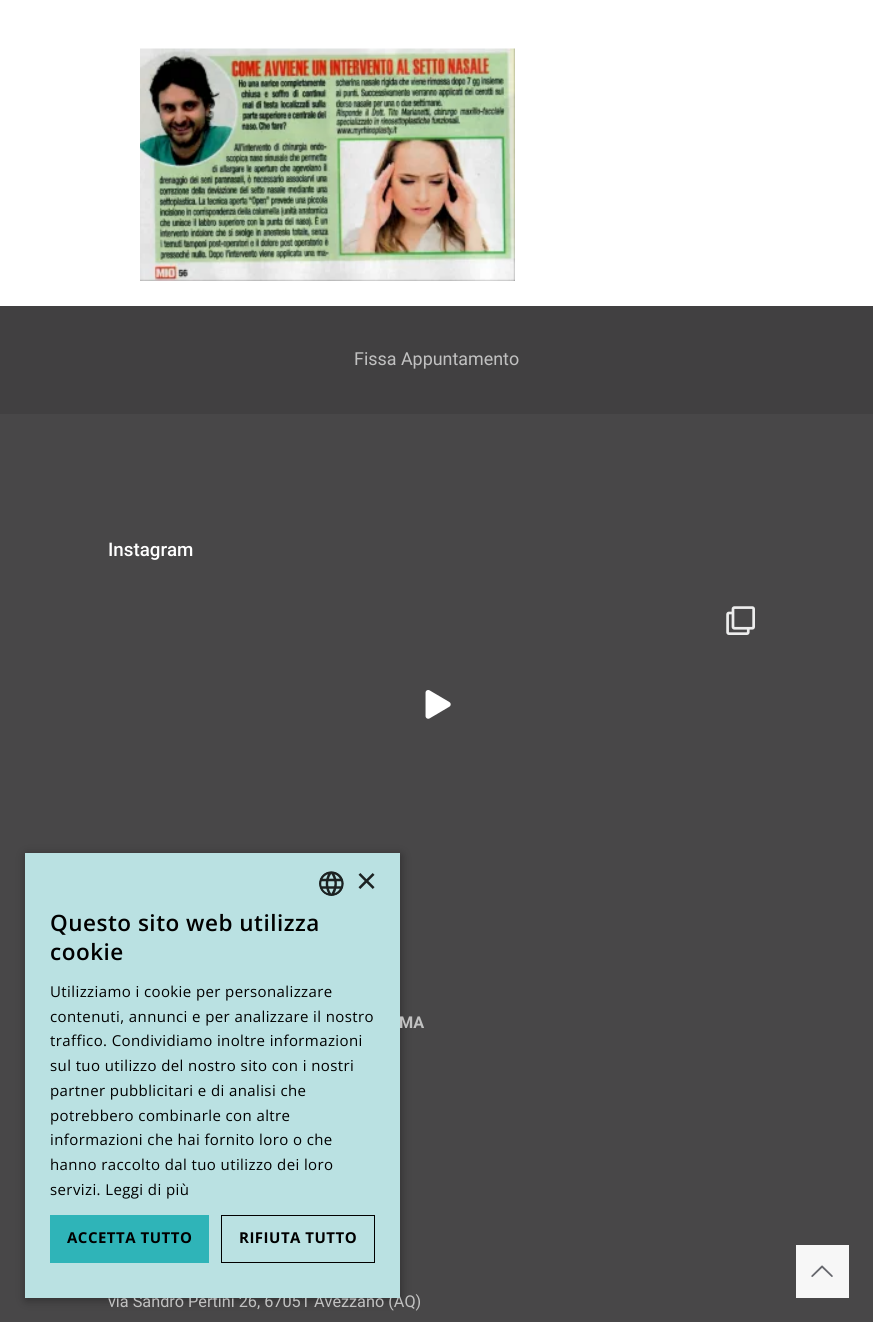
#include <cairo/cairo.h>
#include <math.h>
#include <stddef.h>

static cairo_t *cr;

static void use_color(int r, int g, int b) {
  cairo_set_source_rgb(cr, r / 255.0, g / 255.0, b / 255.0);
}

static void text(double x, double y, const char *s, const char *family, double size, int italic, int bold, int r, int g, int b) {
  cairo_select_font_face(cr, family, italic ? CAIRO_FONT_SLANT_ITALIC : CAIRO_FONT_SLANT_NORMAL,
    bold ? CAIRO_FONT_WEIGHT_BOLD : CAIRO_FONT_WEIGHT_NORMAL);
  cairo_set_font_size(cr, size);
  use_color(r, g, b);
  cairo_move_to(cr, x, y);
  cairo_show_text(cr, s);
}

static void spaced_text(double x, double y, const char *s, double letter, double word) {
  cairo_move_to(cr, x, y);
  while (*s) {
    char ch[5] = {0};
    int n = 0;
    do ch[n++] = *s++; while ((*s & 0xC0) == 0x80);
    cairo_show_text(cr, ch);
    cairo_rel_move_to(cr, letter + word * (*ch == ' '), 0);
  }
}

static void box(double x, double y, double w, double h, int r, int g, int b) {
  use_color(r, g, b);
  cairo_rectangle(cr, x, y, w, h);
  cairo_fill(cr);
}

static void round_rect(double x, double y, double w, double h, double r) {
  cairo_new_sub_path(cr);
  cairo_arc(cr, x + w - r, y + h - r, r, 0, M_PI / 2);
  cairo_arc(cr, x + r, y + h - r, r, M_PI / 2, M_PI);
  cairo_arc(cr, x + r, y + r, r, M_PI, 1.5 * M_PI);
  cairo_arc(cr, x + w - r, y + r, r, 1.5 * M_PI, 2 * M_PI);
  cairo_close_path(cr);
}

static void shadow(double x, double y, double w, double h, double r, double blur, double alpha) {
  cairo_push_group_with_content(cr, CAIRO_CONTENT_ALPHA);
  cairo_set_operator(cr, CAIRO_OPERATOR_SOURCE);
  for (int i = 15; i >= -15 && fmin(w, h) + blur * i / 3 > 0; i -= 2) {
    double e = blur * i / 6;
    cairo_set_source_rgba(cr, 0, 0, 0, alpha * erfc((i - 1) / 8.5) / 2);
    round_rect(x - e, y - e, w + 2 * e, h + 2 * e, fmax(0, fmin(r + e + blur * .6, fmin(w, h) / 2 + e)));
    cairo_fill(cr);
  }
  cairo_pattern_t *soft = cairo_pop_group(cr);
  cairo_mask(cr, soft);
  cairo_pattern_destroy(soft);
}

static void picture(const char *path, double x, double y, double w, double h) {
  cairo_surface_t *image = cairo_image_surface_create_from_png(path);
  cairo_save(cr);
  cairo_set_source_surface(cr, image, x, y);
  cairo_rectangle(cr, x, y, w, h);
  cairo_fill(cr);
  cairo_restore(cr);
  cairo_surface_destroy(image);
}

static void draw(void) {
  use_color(255, 255, 255);
  cairo_paint(cr);
  picture("img_01.png", 140, 48, 375, 233);
  box(0, 414, 873, 908, 72, 71, 72);
  box(0, 306, 873, 108, 65, 64, 65);
  picture("img_02.png", 726, 606, 29, 29);
  picture("img_03.png", 425, 690, 26, 29);
  use_color(0, 0, 0);
  shadow(26, 855, 375, 445, 0, 5, 0.35);
  box(796, 1245, 53, 53, 247, 247, 247);
  picture("img_05.png", 811, 1265, 22, 12);
  text(354, 365, "Fissa Appuntamento", "Roboto", 17.9, 0, 0, 193, 193, 193);
  text(108, 556, "Instagram", "Roboto Medium", 18.75, 0, 0, 255, 255, 255);
  text(399, 1028, "MA", "Roboto", 16.25, 0, 1, 193, 193, 193);
  text(108, 1307, "via Sandro Pertini 26, 67051 Avezzano (AQ)", "Roboto", 16.25, 0, 0, 193, 193, 193);
  box(25, 853, 375, 445, 186, 225, 226);
  picture("img_04.png", 319, 871, 25, 25);
  text(356, 893, "×", "Liberation Sans", 36, 0, 0, 28, 34, 34);
  cairo_select_font_face(cr, "Open Sans SemiBold", CAIRO_FONT_SLANT_NORMAL, CAIRO_FONT_WEIGHT_NORMAL);
  cairo_set_font_size(cr, 22.5);
  use_color(0, 0, 0);
  spaced_text(50, 931, "Questo sito web utilizza", 0.5, 0);
  spaced_text(50, 960, "cookie", 0.5, 0);
  cairo_select_font_face(cr, "Open Sans", CAIRO_FONT_SLANT_NORMAL, CAIRO_FONT_WEIGHT_NORMAL);
  cairo_set_font_size(cr, 15);
  spaced_text(50, 997, "Utilizziamo i cookie per personalizzare", 0.4, 0);
  spaced_text(50, 1022, "contenuti, annunci e per analizzare il nostro", 0.4, 0);
  spaced_text(50, 1046, "traffico. Condividiamo inoltre informazioni", 0.4, 0);
  spaced_text(50, 1071, "sul tuo utilizzo del nostro sito con i nostri", 0.4, 0);
  spaced_text(50, 1096, "partner pubblicitari e di analisi che", 0.4, 0);
  spaced_text(50, 1121, "potrebbero combinarle con altre", 0.4, 0);
  spaced_text(50, 1145, "informazioni che hai fornito loro o che", 0.4, 0);
  spaced_text(50, 1170, "hanno raccolto dal tuo utilizzo dei loro", 0.4, 0);
  spaced_text(50, 1195, "servizi. Leggi di più", 0.4, 0);
  box(50, 1215, 159, 48, 47, 180, 184);
  cairo_select_font_face(cr, "Open Sans", CAIRO_FONT_SLANT_NORMAL, CAIRO_FONT_WEIGHT_BOLD);
  use_color(0, 0, 0);
  spaced_text(67, 1243, "ACCETTA TUTTO", 0.5, 0);
  cairo_rectangle(cr, 221.5, 1215.5, 153, 47);
  cairo_set_line_width(cr, 1);
  cairo_stroke(cr);
  spaced_text(239, 1243, "RIFIUTA TUTTO", 0.5, 0);
}

int main(void) {
  cairo_surface_t *surface = cairo_image_surface_create(CAIRO_FORMAT_RGB24, 873, 1322);
  cr = cairo_create(surface);
  cairo_font_options_t *options = cairo_font_options_create();
  cairo_font_options_set_hint_metrics(options, CAIRO_HINT_METRICS_OFF);
  cairo_font_options_set_hint_style(options, CAIRO_HINT_STYLE_NONE);
  cairo_set_font_options(cr, options);
  cairo_set_miter_limit(cr, 4);
  draw();
  cairo_surface_write_to_png(surface, "out.png");
  cairo_font_options_destroy(options);
  cairo_destroy(cr);
  cairo_surface_destroy(surface);
  return 0;
}
